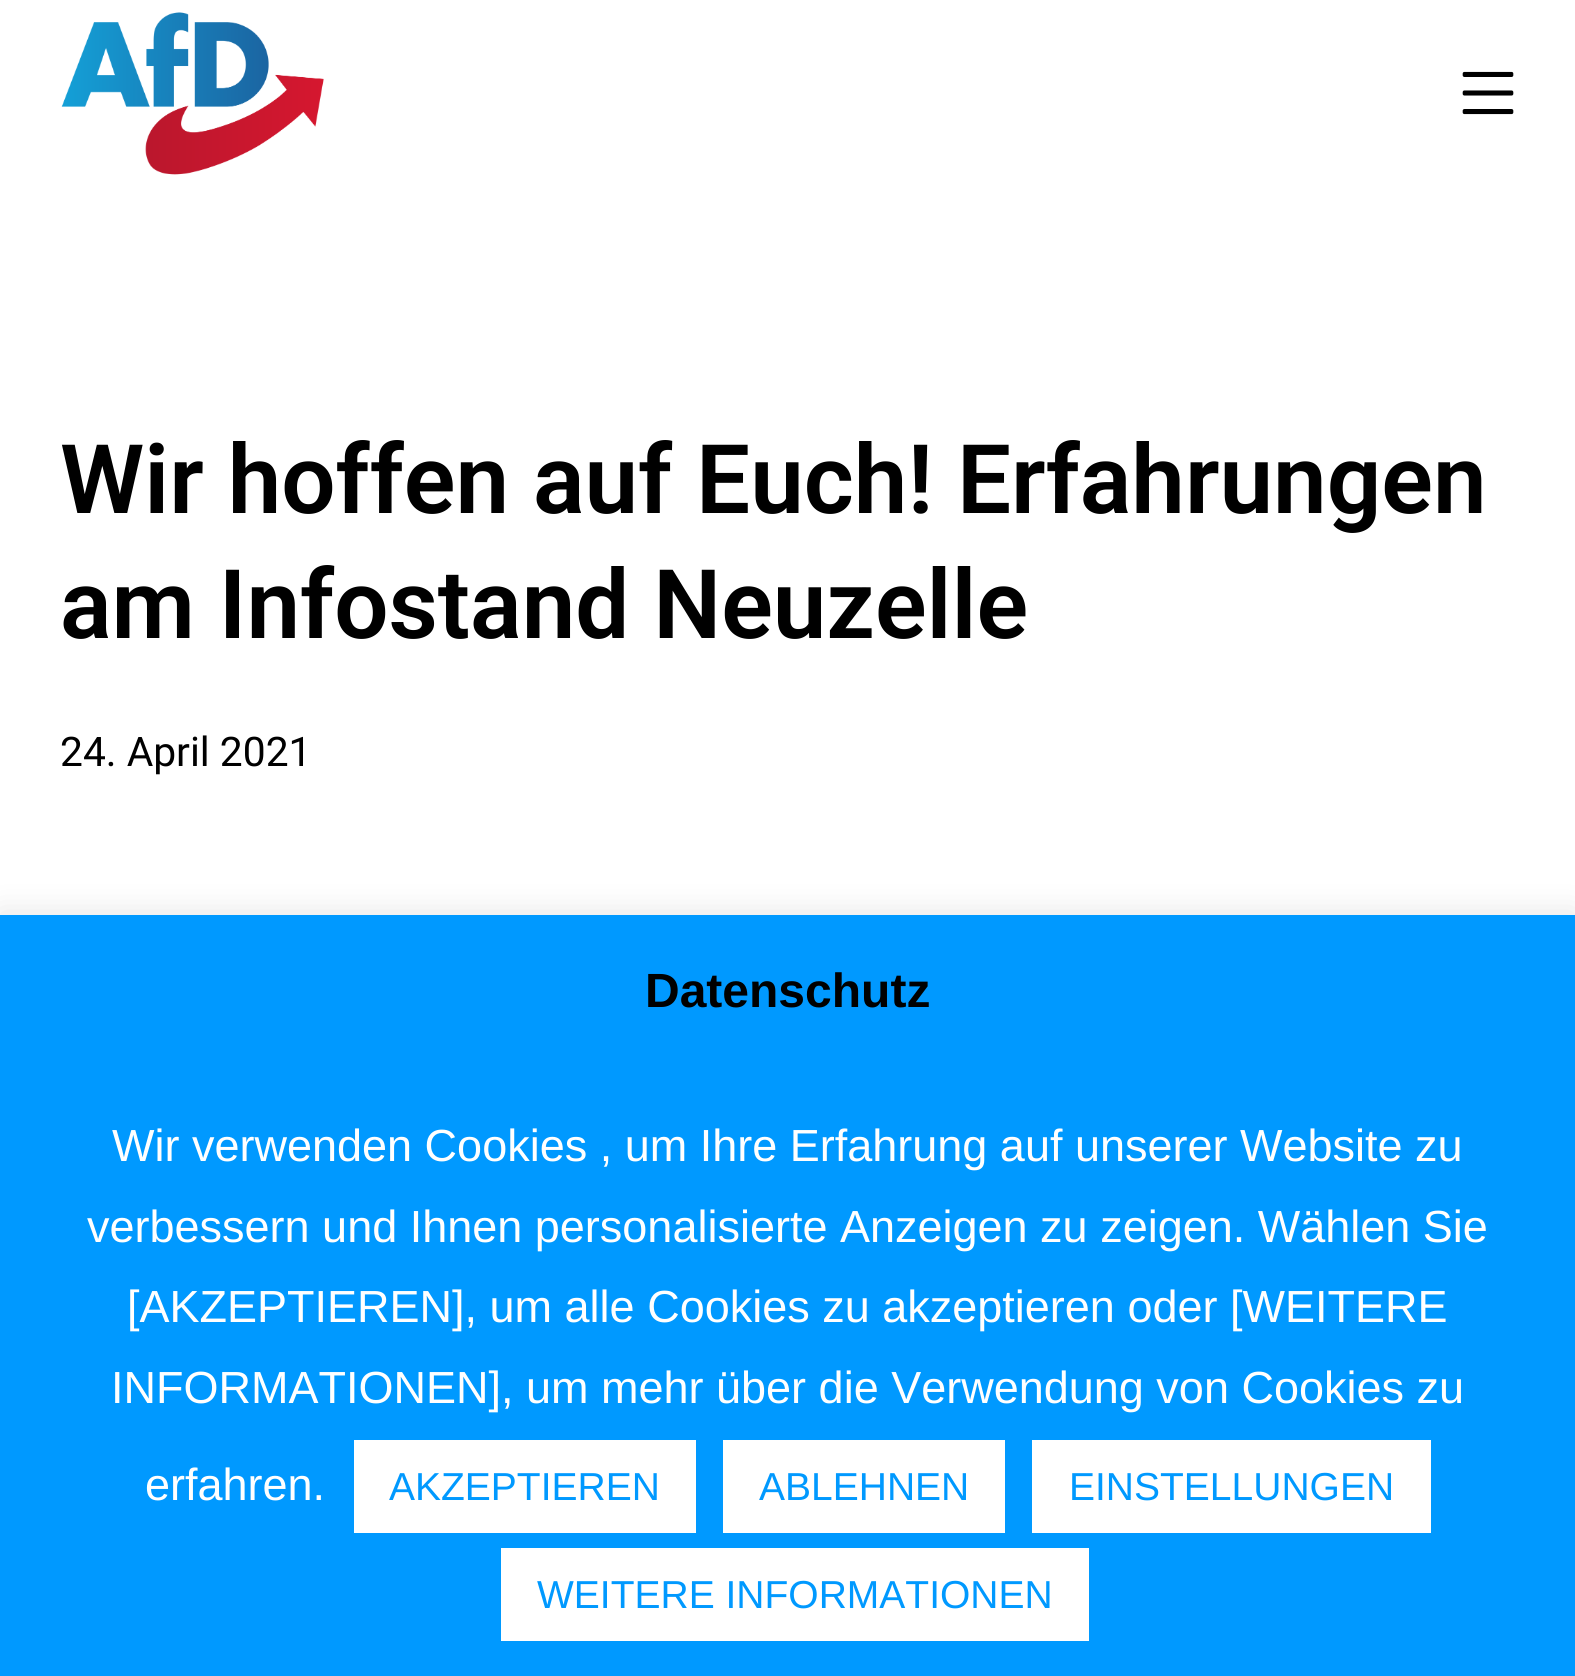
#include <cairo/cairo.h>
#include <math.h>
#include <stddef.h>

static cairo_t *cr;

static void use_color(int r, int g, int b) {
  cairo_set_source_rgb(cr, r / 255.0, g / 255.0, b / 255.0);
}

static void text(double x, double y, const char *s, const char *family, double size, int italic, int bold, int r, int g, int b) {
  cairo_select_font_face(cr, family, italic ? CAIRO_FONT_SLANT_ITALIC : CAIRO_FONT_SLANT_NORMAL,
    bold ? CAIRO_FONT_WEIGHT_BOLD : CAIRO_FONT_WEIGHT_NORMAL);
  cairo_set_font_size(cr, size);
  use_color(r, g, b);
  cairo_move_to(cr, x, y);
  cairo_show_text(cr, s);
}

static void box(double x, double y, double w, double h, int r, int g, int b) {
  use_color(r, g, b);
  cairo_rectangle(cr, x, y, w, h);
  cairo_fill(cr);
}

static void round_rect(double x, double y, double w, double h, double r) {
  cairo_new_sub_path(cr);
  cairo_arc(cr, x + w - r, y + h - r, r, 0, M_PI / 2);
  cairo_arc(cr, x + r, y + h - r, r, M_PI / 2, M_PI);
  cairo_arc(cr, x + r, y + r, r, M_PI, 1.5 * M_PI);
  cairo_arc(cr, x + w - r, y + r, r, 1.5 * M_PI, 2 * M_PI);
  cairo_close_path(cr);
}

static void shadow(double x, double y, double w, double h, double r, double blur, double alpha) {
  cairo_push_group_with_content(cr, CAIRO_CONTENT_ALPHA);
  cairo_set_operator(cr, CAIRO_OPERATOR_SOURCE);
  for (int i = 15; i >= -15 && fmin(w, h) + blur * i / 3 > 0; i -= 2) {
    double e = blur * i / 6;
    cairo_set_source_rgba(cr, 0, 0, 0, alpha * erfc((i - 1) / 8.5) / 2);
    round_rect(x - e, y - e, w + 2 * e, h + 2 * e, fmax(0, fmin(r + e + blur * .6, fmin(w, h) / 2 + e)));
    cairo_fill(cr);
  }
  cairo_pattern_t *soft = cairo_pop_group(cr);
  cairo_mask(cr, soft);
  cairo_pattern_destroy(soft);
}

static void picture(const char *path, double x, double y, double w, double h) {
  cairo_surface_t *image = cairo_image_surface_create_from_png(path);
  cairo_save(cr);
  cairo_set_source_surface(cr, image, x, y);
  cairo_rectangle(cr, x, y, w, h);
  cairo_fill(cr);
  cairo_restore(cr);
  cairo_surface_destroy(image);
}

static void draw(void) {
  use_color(255, 255, 255);
  cairo_paint(cr);
  picture("img_01.png", 61, 12, 263, 163);
  picture("img_02.png", 1462, 71, 52, 44);
  use_color(172, 171, 171);
  shadow(0, 912, 1575, 762, 0, 15, 0.3);
  box(0, 915, 1575, 761, 0, 153, 255);
  box(354, 1440, 342, 93, 255, 255, 255);
  box(723, 1440, 282, 93, 255, 255, 255);
  box(1032, 1440, 399, 93, 255, 255, 255);
  box(501, 1548, 588, 93, 255, 255, 255);
  text(60, 513, "Wir hoffen auf Euch! Erfahrungen", "Roboto SemiBold", 96, 0, 0, 0, 0, 0);
  text(60, 638, "am Infostand Neuzelle", "Roboto SemiBold", 96, 0, 0, 0, 0, 0);
  text(60, 766, "24. April 2021", "Roboto", 40.75, 0, 0, 0, 0, 0);
  text(645, 1007, "Datenschutz", "Liberation Sans", 48, 0, 1, 0, 0, 0);
  text(112, 1161, "Wir verwenden Cookies , um Ihre Erfahrung auf unserer Website zu", "Liberation Sans", 45, 0, 0, 255, 255, 255);
  text(87, 1242, "verbessern und Ihnen personalisierte Anzeigen zu zeigen. Wählen Sie", "Liberation Sans", 45, 0, 0, 255, 255, 255);
  text(127, 1322, "[AKZEPTIEREN], um alle Cookies zu akzeptieren oder [WEITERE", "Liberation Sans", 45, 0, 0, 255, 255, 255);
  text(111, 1403, "INFORMATIONEN], um mehr über die Verwendung von Cookies zu", "Liberation Sans", 45, 0, 0, 255, 255, 255);
  text(145, 1500, "erfahren.", "Liberation Sans", 45, 0, 0, 255, 255, 255);
  text(389, 1500, "AKZEPTIEREN", "Liberation Sans", 39, 0, 0, 0, 153, 255);
  text(759, 1500, "ABLEHNEN", "Liberation Sans", 39, 0, 0, 0, 153, 255);
  text(1069, 1500, "EINSTELLUNGEN", "Liberation Sans", 39, 0, 0, 0, 153, 255);
  text(537, 1608, "WEITERE INFORMATIONEN", "Liberation Sans", 39, 0, 0, 0, 153, 255);
}

int main(void) {
  cairo_surface_t *surface = cairo_image_surface_create(CAIRO_FORMAT_RGB24, 1575, 1676);
  cr = cairo_create(surface);
  cairo_font_options_t *options = cairo_font_options_create();
  cairo_font_options_set_hint_metrics(options, CAIRO_HINT_METRICS_OFF);
  cairo_font_options_set_hint_style(options, CAIRO_HINT_STYLE_NONE);
  cairo_set_font_options(cr, options);
  cairo_set_miter_limit(cr, 4);
  draw();
  cairo_surface_write_to_png(surface, "out.png");
  cairo_font_options_destroy(options);
  cairo_destroy(cr);
  cairo_surface_destroy(surface);
  return 0;
}
